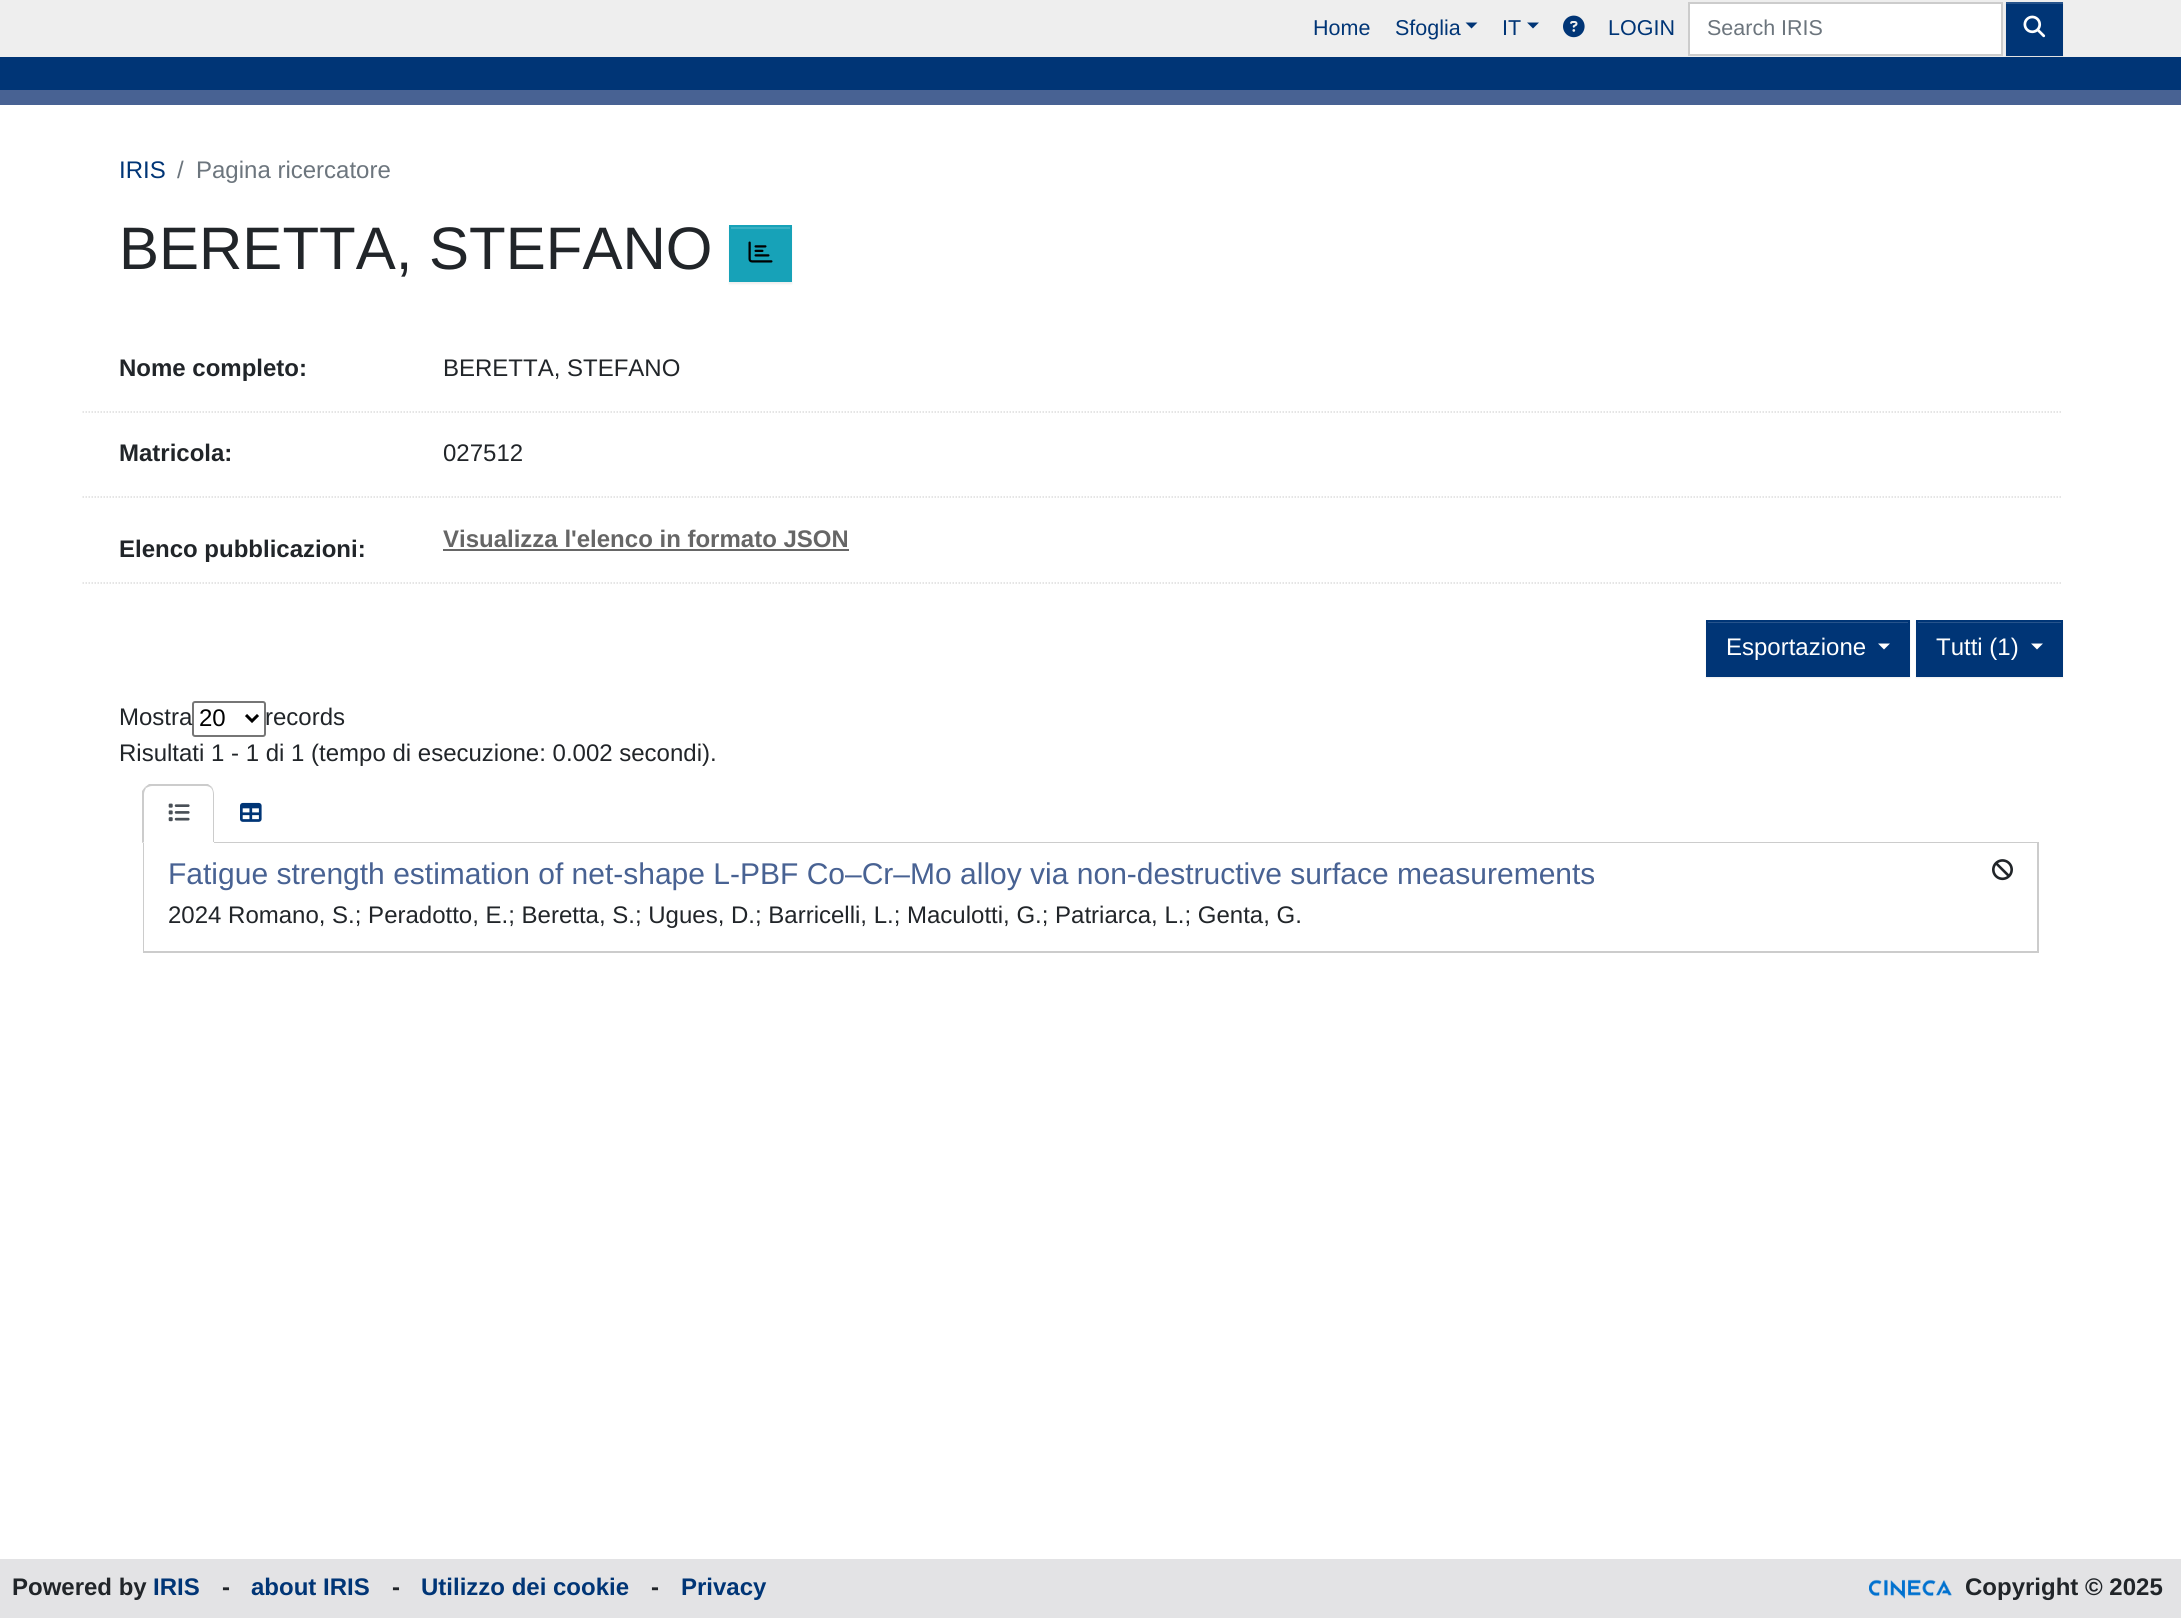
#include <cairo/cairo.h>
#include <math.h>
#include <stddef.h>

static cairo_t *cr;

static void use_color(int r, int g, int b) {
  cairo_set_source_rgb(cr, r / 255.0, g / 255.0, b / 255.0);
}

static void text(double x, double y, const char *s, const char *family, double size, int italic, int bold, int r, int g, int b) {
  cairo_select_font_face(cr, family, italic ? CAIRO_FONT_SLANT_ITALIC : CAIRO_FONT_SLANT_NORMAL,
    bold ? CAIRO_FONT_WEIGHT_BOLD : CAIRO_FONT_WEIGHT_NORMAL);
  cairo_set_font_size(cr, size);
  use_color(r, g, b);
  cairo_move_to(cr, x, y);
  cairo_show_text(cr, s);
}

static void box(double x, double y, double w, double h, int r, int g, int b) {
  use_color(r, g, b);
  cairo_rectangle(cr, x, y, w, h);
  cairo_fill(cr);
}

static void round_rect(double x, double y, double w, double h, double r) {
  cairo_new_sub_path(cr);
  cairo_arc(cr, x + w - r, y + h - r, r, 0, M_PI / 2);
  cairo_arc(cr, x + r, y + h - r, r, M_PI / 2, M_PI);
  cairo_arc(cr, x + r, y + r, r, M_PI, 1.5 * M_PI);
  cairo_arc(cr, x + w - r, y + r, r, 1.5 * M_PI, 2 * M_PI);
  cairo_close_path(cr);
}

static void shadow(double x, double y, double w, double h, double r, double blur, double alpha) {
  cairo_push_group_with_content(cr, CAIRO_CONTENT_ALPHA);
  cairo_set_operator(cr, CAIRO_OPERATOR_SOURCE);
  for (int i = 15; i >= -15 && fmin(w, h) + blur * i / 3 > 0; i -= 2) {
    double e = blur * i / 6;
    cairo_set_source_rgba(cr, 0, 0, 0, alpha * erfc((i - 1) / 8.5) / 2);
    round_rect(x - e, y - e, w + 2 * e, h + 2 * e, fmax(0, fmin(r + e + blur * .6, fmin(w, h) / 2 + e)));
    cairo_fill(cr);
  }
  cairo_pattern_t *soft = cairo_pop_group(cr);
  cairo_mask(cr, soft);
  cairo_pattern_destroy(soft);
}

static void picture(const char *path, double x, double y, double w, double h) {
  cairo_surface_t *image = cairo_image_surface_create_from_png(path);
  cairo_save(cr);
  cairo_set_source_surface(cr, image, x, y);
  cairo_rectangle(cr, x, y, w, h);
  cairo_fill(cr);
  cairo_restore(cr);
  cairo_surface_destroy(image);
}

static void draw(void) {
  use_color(255, 255, 255);
  cairo_paint(cr);
  box(0, 0, 2181, 57, 238, 238, 238);
  use_color(0, 53, 118);
  cairo_new_path(cr);
  cairo_move_to(cr, 1465.5, 22.5);
  cairo_line_to(cr, 1477.5, 22.5);
  cairo_line_to(cr, 1471.5, 28.5);
  cairo_close_path(cr);
  cairo_fill(cr);
  cairo_new_path(cr);
  cairo_move_to(cr, 1527, 22.5);
  cairo_line_to(cr, 1539, 22.5);
  cairo_line_to(cr, 1533, 28.5);
  cairo_close_path(cr);
  cairo_fill(cr);
  picture("img_01.png", 1563, 15, 22, 23);
  use_color(255, 255, 255);
  cairo_rectangle(cr, 1689, 3, 313, 52);
  cairo_fill_preserve(cr);
  use_color(204, 204, 204);
  cairo_stroke(cr);
  box(0, 57, 2181, 33, 0, 53, 118);
  use_color(0, 0, 0);
  shadow(2006, 3, 57, 54, 0, 1, 0.07);
  box(2006, 4, 57, 52, 0, 53, 118);
  box(2006, 2, 57, 2, 38, 83, 139);
  picture("img_02.png", 2023, 15, 23, 23);
  box(0, 90, 2181, 15, 72, 98, 147);
  use_color(0, 0, 0);
  shadow(729, 227, 63, 57, 0, 1, 0.07);
  box(731, 229, 59, 51, 23, 162, 184);
  box(731, 227, 60, 2, 58, 176, 195);
  cairo_rectangle(cr, 730, 226, 61, 55);
  use_color(23, 162, 184);
  cairo_stroke(cr);
  picture("img_03.png", 748, 241, 25, 22);
  cairo_new_path(cr);
  cairo_move_to(cr, 82.5, 412);
  cairo_line_to(cr, 2062.5, 412);
  use_color(221, 221, 221);
  cairo_set_line_width(cr, 1.5);
  cairo_set_dash(cr, (double[]){1.5, 1.5}, 2, 0);
  cairo_stroke(cr);
  cairo_new_path(cr);
  cairo_move_to(cr, 82.5, 497);
  cairo_line_to(cr, 2062.5, 497);
  cairo_stroke(cr);
  cairo_new_path(cr);
  cairo_move_to(cr, 82.5, 583);
  cairo_line_to(cr, 2062.5, 583);
  cairo_stroke(cr);
  box(443, 549, 406, 2, 102, 102, 102);
  use_color(0, 0, 0);
  shadow(1706, 621, 204, 57, 0, 1, 0.07);
  box(1708, 623, 200, 52, 0, 53, 118);
  box(1707, 622, 201, 1, 38, 83, 139);
  cairo_rectangle(cr, 1707, 621, 202, 55);
  use_color(0, 53, 118);
  cairo_set_line_width(cr, 2);
  cairo_set_dash(cr, NULL, 0, 0);
  cairo_stroke(cr);
  use_color(255, 255, 255);
  cairo_new_path(cr);
  cairo_move_to(cr, 1878, 643.5);
  cairo_line_to(cr, 1890, 643.5);
  cairo_line_to(cr, 1884, 649.5);
  cairo_close_path(cr);
  cairo_fill(cr);
  use_color(0, 0, 0);
  shadow(1916, 621, 147, 57, 0, 1, 0.07);
  box(1918, 623, 143, 52, 0, 53, 118);
  box(1917, 622, 144, 1, 38, 83, 139);
  cairo_rectangle(cr, 1917, 621, 145, 55);
  use_color(0, 53, 118);
  cairo_stroke(cr);
  use_color(255, 255, 255);
  cairo_new_path(cr);
  cairo_move_to(cr, 2031, 643.5);
  cairo_line_to(cr, 2043, 643.5);
  cairo_line_to(cr, 2037, 649.5);
  cairo_close_path(cr);
  cairo_fill(cr);
  round_rect(193, 702, 72, 34, 2);
  use_color(118, 118, 118);
  cairo_stroke(cr);
  cairo_new_path(cr);
  cairo_move_to(cr, 246, 715);
  cairo_line_to(cr, 252, 721);
  cairo_line_to(cr, 258, 715);
  use_color(0, 0, 0);
  cairo_set_line_width(cr, 3);
  cairo_stroke(cr);
  use_color(204, 204, 204);
  cairo_new_path(cr);
  cairo_move_to(cr, 152, 786);
  cairo_curve_to(cr, 150, 786, 148, 787, 146, 788);
  cairo_line_to(cr, 145, 787);
  cairo_line_to(cr, 149, 784);
  cairo_line_to(cr, 208, 784);
  cairo_line_to(cr, 212, 787);
  cairo_line_to(cr, 211, 788);
  cairo_curve_to(cr, 210, 787, 208, 786, 206, 786);
  cairo_close_path(cr);
  cairo_fill(cr);
  cairo_new_path(cr);
  cairo_move_to(cr, 212, 787);
  cairo_curve_to(cr, 213, 789, 214, 792, 214, 794);
  cairo_line_to(cr, 214, 842);
  cairo_line_to(cr, 213, 842);
  cairo_line_to(cr, 213, 794);
  cairo_curve_to(cr, 213, 791, 212, 789, 211, 788);
  cairo_close_path(cr);
  cairo_fill(cr);
  cairo_rectangle(cr, 144, 843, 1894, 109);
  cairo_set_line_width(cr, 2);
  cairo_stroke(cr);
  use_color(255, 255, 255);
  cairo_new_path(cr);
  cairo_move_to(cr, 142, 843);
  cairo_line_to(cr, 214, 843);
  cairo_line_to(cr, 214, 842);
  cairo_line_to(cr, 213, 842);
  cairo_line_to(cr, 144, 842);
  cairo_close_path(cr);
  cairo_fill(cr);
  use_color(204, 204, 204);
  cairo_new_path(cr);
  cairo_move_to(cr, 142, 843);
  cairo_line_to(cr, 142, 791);
  cairo_line_to(cr, 145, 787);
  cairo_line_to(cr, 146, 788);
  cairo_curve_to(cr, 145, 790, 144, 792, 144, 794);
  cairo_line_to(cr, 144, 842);
  cairo_close_path(cr);
  cairo_fill(cr);
  picture("img_04.png", 168, 803, 22, 19);
  picture("img_05.png", 240, 802, 22, 20);
  box(144, 843, 1893, 108, 255, 255, 255);
  picture("img_06.png", 1992, 859, 21, 22);
  box(0, 1559, 2181, 59, 227, 227, 229);
  picture("img_07.png", 1869, 1579, 83, 20);
  text(1313, 35, "Home", "Liberation Sans", 21.5, 0, 0, 0, 53, 118);
  text(1395, 35, "Sfoglia", "Liberation Sans", 21.5, 0, 0, 0, 53, 118);
  text(1502, 35, "IT", "Liberation Sans", 21.5, 0, 0, 0, 53, 118);
  text(1608, 35, "LOGIN", "Liberation Sans", 21.5, 0, 0, 0, 53, 118);
  text(1707, 35, "Search IRIS", "Liberation Sans", 21.5, 0, 0, 108, 117, 125);
  text(119, 178, "IRIS", "Liberation Sans", 24, 0, 0, 0, 53, 118);
  text(177, 178, "/", "Liberation Sans", 24, 0, 0, 108, 117, 125);
  text(196, 178, "Pagina ricercatore", "Liberation Sans", 24, 0, 0, 108, 117, 125);
  text(119, 269, "BERETTA, STEFANO", "Liberation Sans", 60, 0, 0, 33, 37, 41);
  text(119, 376, "Nome completo:", "Liberation Sans", 24, 0, 1, 33, 37, 41);
  text(443, 376, "BERETTA, STEFANO", "Liberation Sans", 24, 0, 0, 33, 37, 41);
  text(119, 461, "Matricola:", "Liberation Sans", 24, 0, 1, 33, 37, 41);
  text(443, 461, "027512", "Liberation Sans", 24, 0, 0, 33, 37, 41);
  text(119, 557, "Elenco pubblicazioni:", "Liberation Sans", 24, 0, 1, 33, 37, 41);
  text(443, 547, "Visualizza l'elenco in formato JSON", "Liberation Sans", 24, 0, 1, 102, 102, 102);
  text(1726, 655, "Esportazione", "Liberation Sans", 24, 0, 0, 255, 255, 255);
  text(1936, 655, "Tutti (1)", "Liberation Sans", 24, 0, 0, 255, 255, 255);
  text(119, 725, "Mostra", "Liberation Sans", 24, 0, 0, 33, 37, 41);
  text(199, 726, "20", "Liberation Sans", 24, 0, 0, 0, 0, 0);
  text(265, 725, "records", "Liberation Sans", 24, 0, 0, 33, 37, 41);
  text(119, 761, "Risultati 1 - 1 di 1 (tempo di esecuzione: 0.002 secondi).", "Liberation Sans", 24, 0, 0, 33, 37, 41);
  text(168, 884, "Fatigue strength estimation of net-shape L-PBF Co–Cr–Mo alloy via non-destructive surface measurements", "Liberation Sans", 30, 0, 0, 72, 98, 147);
  text(168, 923, "2024 Romano, S.; Peradotto, E.; Beretta, S.; Ugues, D.; Barricelli, L.; Maculotti, G.; Patriarca, L.; Genta, G.", "Liberation Sans", 24, 0, 0, 33, 37, 41);
  text(12, 1595, "Powered by", "Liberation Sans", 24, 0, 1, 33, 37, 41);
  text(153, 1595, "IRIS", "Liberation Sans", 24, 0, 1, 0, 53, 118);
  text(222, 1595, "-", "Liberation Sans", 24, 0, 1, 33, 37, 41);
  text(251, 1595, "about IRIS", "Liberation Sans", 24, 0, 1, 0, 53, 118);
  text(392, 1595, "-", "Liberation Sans", 24, 0, 1, 33, 37, 41);
  text(421, 1595, "Utilizzo dei cookie", "Liberation Sans", 24, 0, 1, 0, 53, 118);
  text(651, 1595, "-", "Liberation Sans", 24, 0, 1, 33, 37, 41);
  text(681, 1595, "Privacy", "Liberation Sans", 24, 0, 1, 0, 53, 118);
  text(1965, 1595, "Copyright © 2025", "Liberation Sans", 24, 0, 1, 33, 37, 41);
}

int main(void) {
  cairo_surface_t *surface = cairo_image_surface_create(CAIRO_FORMAT_RGB24, 2181, 1618);
  cr = cairo_create(surface);
  cairo_font_options_t *options = cairo_font_options_create();
  cairo_font_options_set_hint_metrics(options, CAIRO_HINT_METRICS_OFF);
  cairo_font_options_set_hint_style(options, CAIRO_HINT_STYLE_NONE);
  cairo_set_font_options(cr, options);
  cairo_set_miter_limit(cr, 4);
  draw();
  cairo_surface_write_to_png(surface, "out.png");
  cairo_font_options_destroy(options);
  cairo_destroy(cr);
  cairo_surface_destroy(surface);
  return 0;
}
